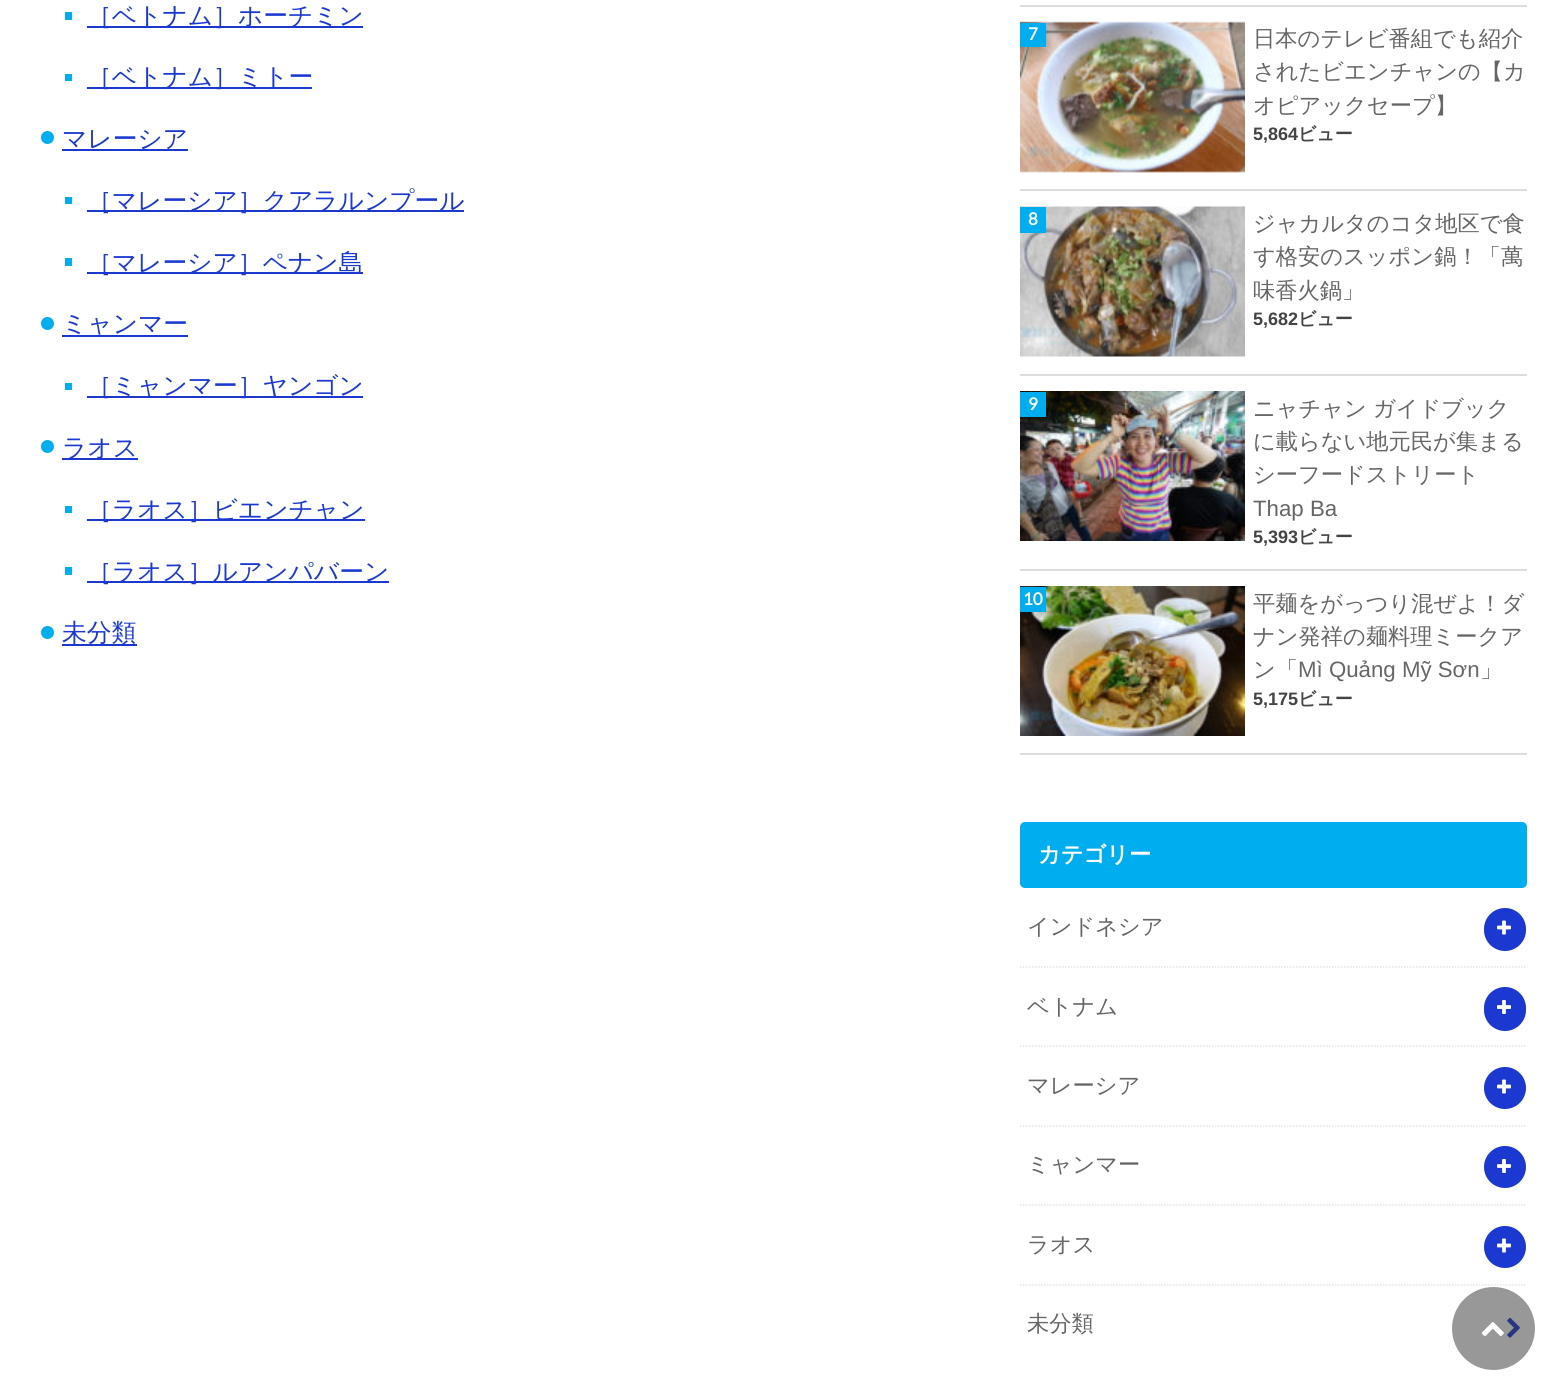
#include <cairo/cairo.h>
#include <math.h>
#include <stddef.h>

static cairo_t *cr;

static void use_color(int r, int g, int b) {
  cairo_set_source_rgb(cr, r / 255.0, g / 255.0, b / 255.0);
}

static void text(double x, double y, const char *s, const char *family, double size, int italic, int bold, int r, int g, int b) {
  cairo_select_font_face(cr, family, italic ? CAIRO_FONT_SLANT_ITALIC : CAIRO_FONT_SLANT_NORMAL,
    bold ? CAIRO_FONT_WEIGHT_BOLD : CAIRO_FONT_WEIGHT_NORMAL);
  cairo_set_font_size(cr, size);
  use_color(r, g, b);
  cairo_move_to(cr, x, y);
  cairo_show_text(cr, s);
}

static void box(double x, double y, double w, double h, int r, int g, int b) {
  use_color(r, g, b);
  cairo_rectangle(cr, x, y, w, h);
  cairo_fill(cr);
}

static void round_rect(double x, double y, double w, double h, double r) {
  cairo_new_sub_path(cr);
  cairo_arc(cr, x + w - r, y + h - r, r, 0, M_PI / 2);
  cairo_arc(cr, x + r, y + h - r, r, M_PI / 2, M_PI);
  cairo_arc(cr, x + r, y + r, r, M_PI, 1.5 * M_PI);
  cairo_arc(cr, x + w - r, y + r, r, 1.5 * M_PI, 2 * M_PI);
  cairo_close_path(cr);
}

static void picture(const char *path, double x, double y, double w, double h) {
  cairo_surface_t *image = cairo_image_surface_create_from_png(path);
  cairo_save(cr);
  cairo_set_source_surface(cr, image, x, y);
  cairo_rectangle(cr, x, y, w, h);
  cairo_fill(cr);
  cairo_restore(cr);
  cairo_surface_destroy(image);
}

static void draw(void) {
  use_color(255, 255, 255);
  cairo_paint(cr);
  box(65, 12, 7, 8, 0, 173, 239);
  box(87, 26, 276, 2, 27, 57, 209);
  box(65, 74, 7, 7, 0, 173, 239);
  box(87, 87, 225, 2, 27, 57, 209);
  use_color(0, 173, 239);
  cairo_arc(cr, 47.5, 137.5, 6.5, 0, 2 * M_PI);
  cairo_fill(cr);
  box(62, 149, 126, 2, 27, 57, 209);
  box(65, 197, 7, 7, 0, 173, 239);
  box(87, 210, 377, 2, 27, 57, 209);
  box(65, 258, 7, 8, 0, 173, 239);
  box(87, 272, 276, 2, 27, 57, 209);
  use_color(0, 173, 239);
  cairo_arc(cr, 47.5, 323.5, 6.5, 0, 2 * M_PI);
  cairo_fill(cr);
  box(62, 335, 126, 2, 27, 57, 209);
  box(65, 383, 7, 7, 0, 173, 239);
  box(87, 396, 276, 2, 27, 57, 209);
  use_color(0, 173, 239);
  cairo_arc(cr, 47.5, 446.5, 6.5, 0, 2 * M_PI);
  cairo_fill(cr);
  box(62, 458, 76, 2, 27, 57, 209);
  box(65, 506, 7, 7, 0, 173, 239);
  box(87, 519, 278, 2, 27, 57, 209);
  box(65, 567, 7, 8, 0, 173, 239);
  box(87, 581, 302, 2, 27, 57, 209);
  use_color(0, 173, 239);
  cairo_arc(cr, 47.5, 632.5, 6.5, 0, 2 * M_PI);
  cairo_fill(cr);
  box(62, 644, 75, 2, 27, 57, 209);
  box(1020, 5, 507, 2, 221, 221, 221);
  box(1020, 189, 507, 2, 221, 221, 221);
  picture("img_01.png", 1020, 21, 225, 152);
  box(1020, 23, 26, 24, 0, 173, 239);
  box(1020, 374, 507, 2, 221, 221, 221);
  picture("img_02.png", 1020, 206, 225, 151);
  box(1020, 207, 26, 26, 0, 173, 239);
  box(1020, 569, 507, 2, 221, 221, 221);
  picture("img_03.png", 1020, 391, 225, 150);
  box(1020, 392, 26, 25, 0, 173, 239);
  box(1020, 753, 507, 2, 221, 221, 221);
  picture("img_04.png", 1020, 586, 225, 150);
  box(1020, 587, 26, 25, 0, 173, 239);
  round_rect(1020, 822, 507, 66, 5);
  cairo_fill(cr);
  cairo_new_path(cr);
  cairo_move_to(cr, 1020, 967);
  cairo_line_to(cr, 1527, 967);
  use_color(229, 229, 229);
  cairo_set_line_width(cr, 1.5);
  cairo_set_dash(cr, (double[]){1.5, 1.5}, 2, 0);
  cairo_stroke(cr);
  use_color(27, 57, 209);
  round_rect(1484, 908, 42, 43, 21);
  cairo_fill(cr);
  picture("img_05.png", 1497, 920, 14, 15);
  cairo_new_path(cr);
  cairo_move_to(cr, 1020, 1046);
  cairo_line_to(cr, 1527, 1046);
  use_color(229, 229, 229);
  cairo_stroke(cr);
  use_color(27, 57, 209);
  round_rect(1484, 987, 42, 44, 21);
  cairo_fill(cr);
  picture("img_06.png", 1497, 1000, 14, 14);
  cairo_new_path(cr);
  cairo_move_to(cr, 1020, 1126);
  cairo_line_to(cr, 1527, 1126);
  use_color(229, 229, 229);
  cairo_stroke(cr);
  use_color(27, 57, 209);
  cairo_arc(cr, 1505, 1088, 21, 0, 2 * M_PI);
  cairo_fill(cr);
  picture("img_05.png", 1497, 1079, 14, 15);
  cairo_new_path(cr);
  cairo_move_to(cr, 1020, 1205);
  cairo_line_to(cr, 1527, 1205);
  use_color(229, 229, 229);
  cairo_stroke(cr);
  use_color(27, 57, 209);
  cairo_arc(cr, 1505, 1167, 21, 0, 2 * M_PI);
  cairo_fill(cr);
  picture("img_06.png", 1497, 1159, 14, 14);
  cairo_new_path(cr);
  cairo_move_to(cr, 1020, 1285);
  cairo_line_to(cr, 1527, 1285);
  use_color(229, 229, 229);
  cairo_stroke(cr);
  use_color(27, 57, 209);
  cairo_arc(cr, 1505, 1247, 21, 0, 2 * M_PI);
  cairo_fill(cr);
  picture("img_05.png", 1497, 1238, 14, 15);
  picture("img_07.png", 1507, 1317, 13, 21);
  cairo_set_source_rgba(cr, 0.2, 0.2, 0.2, 0.5);
  cairo_arc(cr, 1493.5, 1328.5, 41.5, 0, 2 * M_PI);
  cairo_fill(cr);
  picture("img_08.png", 1481, 1322, 23, 15);
  text(87, 24, "［ベトナム］ホーチミン", "WenQuanYi Zen Hei Medium", 24.75, 0, 0, 27, 57, 209);
  text(87, 85, "［ベトナム］ミトー", "WenQuanYi Zen Hei Medium", 24.75, 0, 0, 27, 57, 209);
  text(62, 147, "マレーシア", "WenQuanYi Zen Hei Medium", 24.75, 0, 0, 27, 57, 209);
  text(87, 209, "［マレーシア］クアラルンプール", "WenQuanYi Zen Hei Medium", 24.75, 0, 0, 27, 57, 209);
  text(87, 271, "［マレーシア］ペナン島", "WenQuanYi Zen Hei Medium", 24.75, 0, 0, 27, 57, 209);
  text(62, 332, "ミャンマー", "WenQuanYi Zen Hei Medium", 24.75, 0, 0, 27, 57, 209);
  text(87, 394, "［ミャンマー］ヤンゴン", "WenQuanYi Zen Hei Medium", 24.75, 0, 0, 27, 57, 209);
  text(62, 456, "ラオス", "WenQuanYi Zen Hei Medium", 24.75, 0, 0, 27, 57, 209);
  text(87, 518, "［ラオス］ビエンチャン", "WenQuanYi Zen Hei Medium", 24.75, 0, 0, 27, 57, 209);
  text(87, 580, "［ラオス］ルアンパバーン", "WenQuanYi Zen Hei Medium", 24.75, 0, 0, 27, 57, 209);
  text(62, 641, "未分類", "WenQuanYi Zen Hei Medium", 24.75, 0, 0, 27, 57, 209);
  text(1028, 40, "7", "Lato", 17, 0, 1, 255, 255, 255);
  text(1253, 46, "日本のテレビ番組でも紹介", "WenQuanYi Zen Hei Medium", 22.25, 0, 0, 102, 102, 102);
  text(1253, 79, "されたビエンチャンの【カ", "WenQuanYi Zen Hei Medium", 22.25, 0, 0, 102, 102, 102);
  text(1253, 113, "オピアックセープ】", "WenQuanYi Zen Hei Medium", 22.25, 0, 0, 102, 102, 102);
  text(1253, 140, "5,864", "Liberation Sans", 18, 0, 1, 68, 68, 68);
  text(1298, 140, "ビュー", "WenQuanYi Zen Hei", 18, 0, 1, 68, 68, 68);
  text(1028, 225, "8", "Lato", 17, 0, 1, 255, 255, 255);
  text(1253, 231, "ジャカルタのコタ地区で食", "WenQuanYi Zen Hei Medium", 22.25, 0, 0, 102, 102, 102);
  text(1253, 264, "す格安のスッポン鍋！「萬", "WenQuanYi Zen Hei Medium", 22.25, 0, 0, 102, 102, 102);
  text(1253, 298, "味香火鍋」", "WenQuanYi Zen Hei Medium", 22.25, 0, 0, 102, 102, 102);
  text(1253, 325, "5,682", "Liberation Sans", 18, 0, 1, 68, 68, 68);
  text(1298, 325, "ビュー", "WenQuanYi Zen Hei", 18, 0, 1, 68, 68, 68);
  text(1028, 410, "9", "Lato", 17, 0, 1, 255, 255, 255);
  text(1253, 416, "ニャチャン", "WenQuanYi Zen Hei Medium", 22.25, 0, 0, 102, 102, 102);
  text(1373, 416, "ガイドブック", "WenQuanYi Zen Hei Medium", 22.25, 0, 0, 102, 102, 102);
  text(1253, 449, "に載らない地元民が集まる", "WenQuanYi Zen Hei Medium", 22.25, 0, 0, 102, 102, 102);
  text(1253, 482, "シーフードストリート", "WenQuanYi Zen Hei Medium", 22.25, 0, 0, 102, 102, 102);
  text(1253, 516, "Thap Ba", "Liberation Sans", 22.25, 0, 0, 102, 102, 102);
  text(1253, 543, "5,393", "Liberation Sans", 18, 0, 1, 68, 68, 68);
  text(1298, 543, "ビュー", "WenQuanYi Zen Hei", 18, 0, 1, 68, 68, 68);
  text(1023, 605, "10", "Lato", 17, 0, 1, 255, 255, 255);
  text(1253, 611, "平麺をがっつり混ぜよ！ダ", "WenQuanYi Zen Hei Medium", 22.25, 0, 0, 102, 102, 102);
  text(1253, 644, "ナン発祥の麺料理ミークア", "WenQuanYi Zen Hei Medium", 22.25, 0, 0, 102, 102, 102);
  text(1253, 677, "ン「", "WenQuanYi Zen Hei Medium", 22.25, 0, 0, 102, 102, 102);
  text(1298, 677, "Mì Quảng Mỹ Sơn", "Liberation Sans", 22.25, 0, 0, 102, 102, 102);
  text(1480, 677, "」", "WenQuanYi Zen Hei Medium", 22.25, 0, 0, 102, 102, 102);
  text(1253, 705, "5,175", "Liberation Sans", 18, 0, 1, 68, 68, 68);
  text(1298, 705, "ビュー", "WenQuanYi Zen Hei", 18, 0, 1, 68, 68, 68);
  text(1038, 862, "カテゴリー", "WenQuanYi Zen Hei", 22.25, 0, 1, 255, 255, 255);
  text(1027, 934, "インドネシア", "WenQuanYi Zen Hei Medium", 22.25, 0, 0, 102, 102, 102);
  text(1027, 1014, "ベトナム", "WenQuanYi Zen Hei Medium", 22.25, 0, 0, 102, 102, 102);
  text(1027, 1093, "マレーシア", "WenQuanYi Zen Hei Medium", 22.25, 0, 0, 102, 102, 102);
  text(1027, 1172, "ミャンマー", "WenQuanYi Zen Hei Medium", 22.25, 0, 0, 102, 102, 102);
  text(1027, 1252, "ラオス", "WenQuanYi Zen Hei Medium", 22.25, 0, 0, 102, 102, 102);
  text(1027, 1331, "未分類", "WenQuanYi Zen Hei Medium", 22.25, 0, 0, 102, 102, 102);
}

int main(void) {
  cairo_surface_t *surface = cairo_image_surface_create(CAIRO_FORMAT_RGB24, 1564, 1384);
  cr = cairo_create(surface);
  cairo_font_options_t *options = cairo_font_options_create();
  cairo_font_options_set_hint_metrics(options, CAIRO_HINT_METRICS_OFF);
  cairo_font_options_set_hint_style(options, CAIRO_HINT_STYLE_NONE);
  cairo_set_font_options(cr, options);
  cairo_set_miter_limit(cr, 4);
  draw();
  cairo_surface_write_to_png(surface, "out.png");
  cairo_font_options_destroy(options);
  cairo_destroy(cr);
  cairo_surface_destroy(surface);
  return 0;
}
